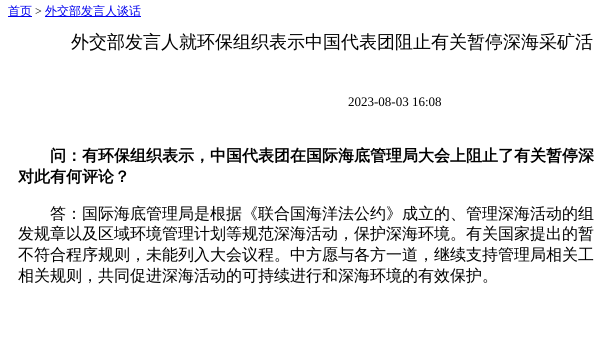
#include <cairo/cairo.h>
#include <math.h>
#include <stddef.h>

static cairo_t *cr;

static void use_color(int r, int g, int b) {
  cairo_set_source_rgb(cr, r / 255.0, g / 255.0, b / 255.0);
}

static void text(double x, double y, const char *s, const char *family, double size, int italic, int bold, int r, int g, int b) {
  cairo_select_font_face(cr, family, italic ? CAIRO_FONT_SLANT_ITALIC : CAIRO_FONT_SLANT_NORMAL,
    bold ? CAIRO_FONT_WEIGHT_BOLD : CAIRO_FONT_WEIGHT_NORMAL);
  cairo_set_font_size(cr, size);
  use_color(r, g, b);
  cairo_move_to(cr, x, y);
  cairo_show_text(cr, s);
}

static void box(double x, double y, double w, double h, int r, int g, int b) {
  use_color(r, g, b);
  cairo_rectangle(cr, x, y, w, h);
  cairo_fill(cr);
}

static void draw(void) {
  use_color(255, 255, 255);
  cairo_paint(cr);
  box(8, 16, 24, 1, 0, 0, 238);
  box(45, 16, 96, 1, 0, 0, 238);
  text(8, 15, "首页", "WenQuanYi Zen Hei Medium", 12, 0, 0, 0, 0, 238);
  text(35, 15, ">", "Liberation Serif", 12, 0, 0, 0, 0, 0);
  text(45, 15, "外交部发言人谈话", "WenQuanYi Zen Hei Medium", 12, 0, 0, 0, 0, 238);
  text(71, 48, "外交部发言人就环保组织表示中国代表团阻止有关暂停深海采矿活", "WenQuanYi Zen Hei Medium", 18, 0, 0, 0, 0, 0);
  text(348, 106, "2023-08-03 16:08", "Liberation Serif", 13, 0, 0, 0, 0, 0);
  text(50, 161, "问：有环保组织表示，中国代表团在国际海底管理局大会上阻止了有关暂停深", "WenQuanYi Zen Hei", 16, 0, 1, 0, 0, 0);
  text(18, 182, "对此有何评论？", "WenQuanYi Zen Hei", 16, 0, 1, 0, 0, 0);
  text(50, 219, "答：国际海底管理局是根据《联合国海洋法公约》成立的、管理深海活动的组", "WenQuanYi Zen Hei Medium", 16, 0, 0, 0, 0, 0);
  text(18, 239, "发规章以及区域环境管理计划等规范深海活动，保护深海环境。有关国家提出的暂", "WenQuanYi Zen Hei Medium", 16, 0, 0, 0, 0, 0);
  text(18, 260, "不符合程序规则，未能列入大会议程。中方愿与各方一道，继续支持管理局相关工", "WenQuanYi Zen Hei Medium", 16, 0, 0, 0, 0, 0);
  text(18, 281, "相关规则，共同促进深海活动的可持续进行和深海环境的有效保护。", "WenQuanYi Zen Hei Medium", 16, 0, 0, 0, 0, 0);
}

int main(void) {
  cairo_surface_t *surface = cairo_image_surface_create(CAIRO_FORMAT_RGB24, 596, 337);
  cr = cairo_create(surface);
  cairo_font_options_t *options = cairo_font_options_create();
  cairo_font_options_set_hint_metrics(options, CAIRO_HINT_METRICS_OFF);
  cairo_font_options_set_hint_style(options, CAIRO_HINT_STYLE_NONE);
  cairo_set_font_options(cr, options);
  cairo_set_miter_limit(cr, 4);
  draw();
  cairo_surface_write_to_png(surface, "out.png");
  cairo_font_options_destroy(options);
  cairo_destroy(cr);
  cairo_surface_destroy(surface);
  return 0;
}
